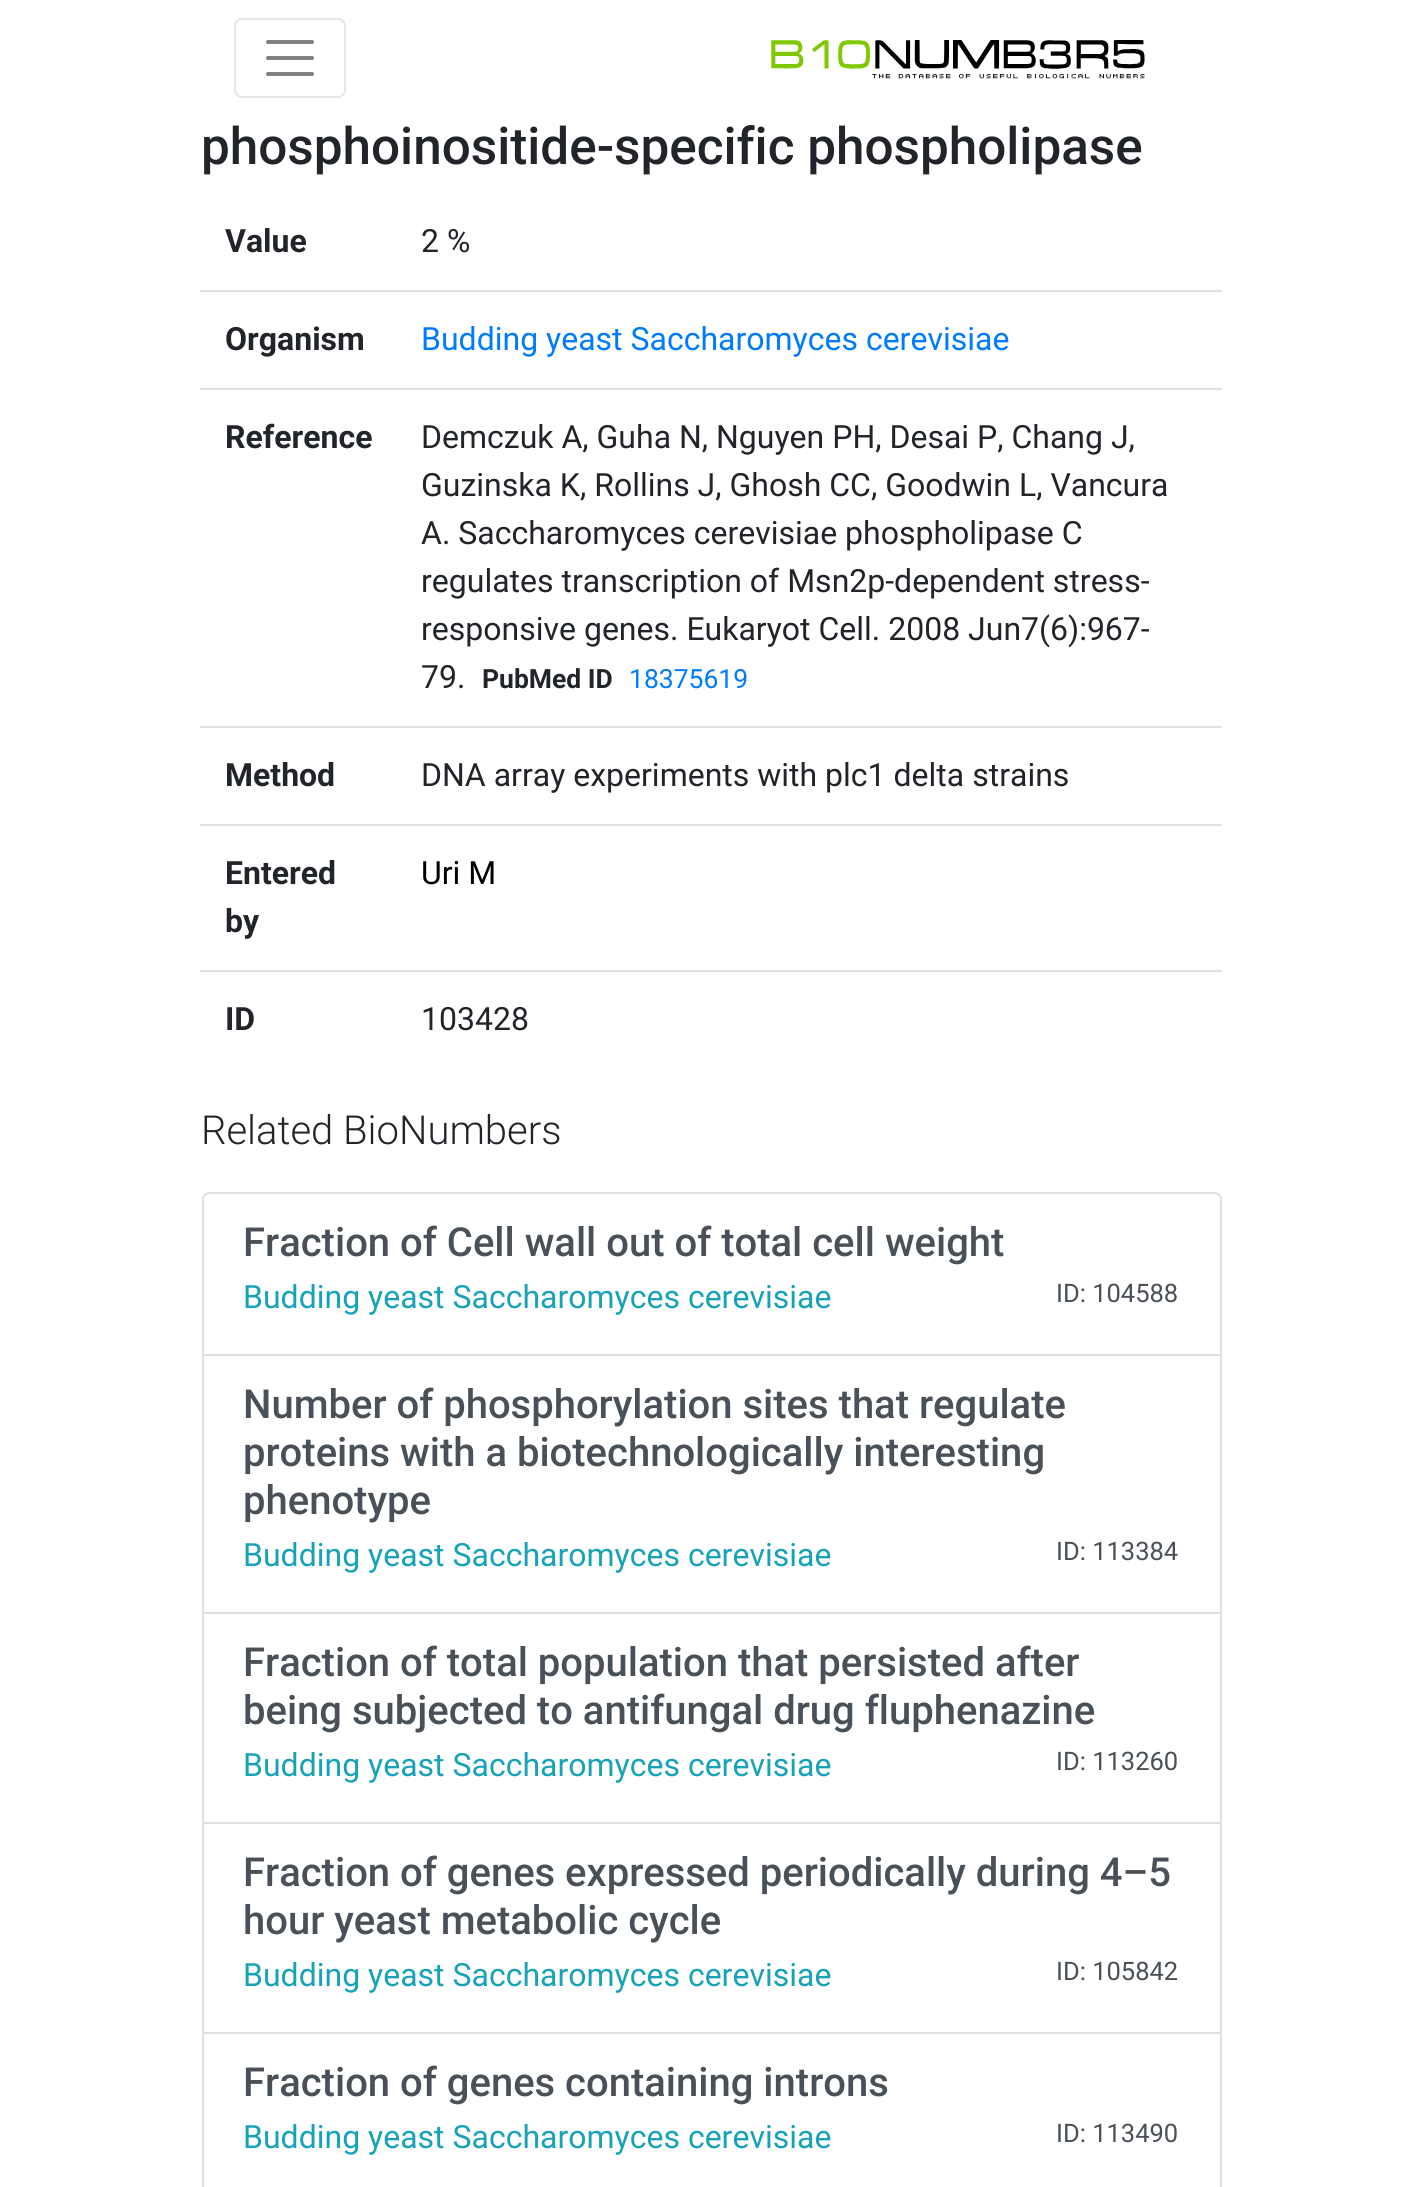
#include <cairo/cairo.h>
#include <math.h>
#include <stddef.h>

static cairo_t *cr;

static void use_color(int r, int g, int b) {
  cairo_set_source_rgb(cr, r / 255.0, g / 255.0, b / 255.0);
}

static void text(double x, double y, const char *s, const char *family, double size, int italic, int bold, int r, int g, int b) {
  cairo_select_font_face(cr, family, italic ? CAIRO_FONT_SLANT_ITALIC : CAIRO_FONT_SLANT_NORMAL,
    bold ? CAIRO_FONT_WEIGHT_BOLD : CAIRO_FONT_WEIGHT_NORMAL);
  cairo_set_font_size(cr, size);
  use_color(r, g, b);
  cairo_move_to(cr, x, y);
  cairo_show_text(cr, s);
}

static void box(double x, double y, double w, double h, int r, int g, int b) {
  use_color(r, g, b);
  cairo_rectangle(cr, x, y, w, h);
  cairo_fill(cr);
}

static void round_rect(double x, double y, double w, double h, double r) {
  cairo_new_sub_path(cr);
  cairo_arc(cr, x + w - r, y + h - r, r, 0, M_PI / 2);
  cairo_arc(cr, x + r, y + h - r, r, M_PI / 2, M_PI);
  cairo_arc(cr, x + r, y + r, r, M_PI, 1.5 * M_PI);
  cairo_arc(cr, x + w - r, y + r, r, 1.5 * M_PI, 2 * M_PI);
  cairo_close_path(cr);
}

static void picture(const char *path, double x, double y, double w, double h) {
  cairo_surface_t *image = cairo_image_surface_create_from_png(path);
  cairo_save(cr);
  cairo_set_source_surface(cr, image, x, y);
  cairo_rectangle(cr, x, y, w, h);
  cairo_fill(cr);
  cairo_restore(cr);
  cairo_surface_destroy(image);
}

static void draw(void) {
  use_color(255, 255, 255);
  cairo_paint(cr);
  round_rect(235, 19, 110, 78, 7);
  use_color(230, 230, 230);
  cairo_stroke(cr);
  cairo_new_path(cr);
  cairo_move_to(cr, 268, 42);
  cairo_line_to(cr, 312, 42);
  cairo_move_to(cr, 268, 58);
  cairo_line_to(cr, 312, 58);
  cairo_move_to(cr, 268, 74);
  cairo_line_to(cr, 312, 74);
  use_color(128, 128, 128);
  cairo_set_line_width(cr, 4);
  cairo_set_line_cap(cr, CAIRO_LINE_CAP_ROUND);
  cairo_stroke(cr);
  picture("img_01.png", 771, 40, 374, 39);
  box(200, 290, 1022, 2, 222, 226, 230);
  box(200, 388, 1022, 2, 222, 226, 230);
  box(200, 726, 1022, 2, 222, 226, 230);
  box(200, 824, 1022, 2, 222, 226, 230);
  box(200, 970, 1022, 2, 222, 226, 230);
  cairo_new_path(cr);
  cairo_move_to(cr, 210, 1193);
  cairo_line_to(cr, 1214, 1193);
  cairo_curve_to(cr, 1218, 1193, 1221, 1196, 1221, 1200);
  cairo_line_to(cr, 1221, 1355);
  cairo_line_to(cr, 203, 1355);
  cairo_line_to(cr, 203, 1200);
  cairo_curve_to(cr, 203, 1196, 206, 1193, 210, 1193);
  cairo_close_path(cr);
  use_color(223, 223, 223);
  cairo_set_line_width(cr, 2);
  cairo_set_line_cap(cr, CAIRO_LINE_CAP_BUTT);
  cairo_stroke(cr);
  cairo_rectangle(cr, 203, 1355, 1018, 258);
  cairo_stroke(cr);
  cairo_rectangle(cr, 203, 1613, 1018, 210);
  cairo_stroke(cr);
  cairo_rectangle(cr, 203, 1823, 1018, 210);
  cairo_stroke(cr);
  cairo_rectangle(cr, 203, 2033, 1018, 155);
  cairo_stroke(cr);
  text(201, 164, "phosphoinositide-specific phospholipase", "Roboto Medium", 51.25, 0, 0, 33, 37, 41);
  text(225, 252, "Value", "Roboto", 32, 0, 1, 33, 37, 41);
  text(421, 252, "2 %", "Roboto", 32, 0, 0, 33, 37, 41);
  text(225, 350, "Organism", "Roboto", 32, 0, 1, 33, 37, 41);
  text(421, 350, "Budding yeast Saccharomyces cerevisiae", "Roboto", 32, 0, 0, 0, 123, 255);
  text(225, 448, "Reference", "Roboto", 32, 0, 1, 33, 37, 41);
  text(421, 448, "Demczuk A, Guha N, Nguyen PH, Desai P, Chang J,", "Roboto", 32, 0, 0, 33, 37, 41);
  text(421, 496, "Guzinska K, Rollins J, Ghosh CC, Goodwin L, Vancura", "Roboto", 32, 0, 0, 33, 37, 41);
  text(421, 544, "A. Saccharomyces cerevisiae phospholipase C", "Roboto", 32, 0, 0, 33, 37, 41);
  text(421, 592, "regulates transcription of Msn2p-dependent stress-", "Roboto", 32, 0, 0, 33, 37, 41);
  text(421, 640, "responsive genes. Eukaryot Cell. 2008 Jun7(6):967-", "Roboto", 32, 0, 0, 33, 37, 41);
  text(421, 688, "79.", "Roboto", 32, 0, 0, 33, 37, 41);
  text(482, 688, "PubMed ID", "Roboto", 26.5, 0, 1, 33, 37, 41);
  text(629, 688, "18375619", "Roboto", 26.5, 0, 0, 0, 123, 255);
  text(225, 786, "Method", "Roboto", 32, 0, 1, 33, 37, 41);
  text(421, 786, "DNA array experiments with plc1 delta strains", "Roboto", 32, 0, 0, 33, 37, 41);
  text(225, 884, "Entered", "Roboto", 32, 0, 1, 33, 37, 41);
  text(225, 932, "by", "Roboto", 32, 0, 1, 33, 37, 41);
  text(421, 884, "Uri M", "Roboto", 32, 0, 0, 0, 0, 0);
  text(225, 1030, "ID", "Roboto", 32, 0, 1, 33, 37, 41);
  text(421, 1030, "103428", "Roboto", 32, 0, 0, 33, 37, 41);
  text(201, 1144, "Related BioNumbers", "Roboto Light", 40, 0, 0, 33, 37, 41);
  text(243, 1256, "Fraction of Cell wall out of total cell weight", "Roboto Medium", 40, 0, 0, 73, 80, 87);
  text(243, 1308, "Budding yeast Saccharomyces cerevisiae", "Roboto", 32, 0, 0, 23, 162, 184);
  text(1056, 1302, "ID: 104588", "Roboto", 25.5, 0, 0, 73, 80, 87);
  text(243, 1418, "Number of phosphorylation sites that regulate", "Roboto Medium", 40, 0, 0, 73, 80, 87);
  text(243, 1466, "proteins with a biotechnologically interesting", "Roboto Medium", 40, 0, 0, 73, 80, 87);
  text(243, 1514, "phenotype", "Roboto Medium", 40, 0, 0, 73, 80, 87);
  text(243, 1566, "Budding yeast Saccharomyces cerevisiae", "Roboto", 32, 0, 0, 23, 162, 184);
  text(1056, 1560, "ID: 113384", "Roboto", 25.5, 0, 0, 73, 80, 87);
  text(243, 1676, "Fraction of total population that persisted after", "Roboto Medium", 40, 0, 0, 73, 80, 87);
  text(243, 1724, "being subjected to antifungal drug fluphenazine", "Roboto Medium", 40, 0, 0, 73, 80, 87);
  text(243, 1776, "Budding yeast Saccharomyces cerevisiae", "Roboto", 32, 0, 0, 23, 162, 184);
  text(1056, 1770, "ID: 113260", "Roboto", 25.5, 0, 0, 73, 80, 87);
  text(243, 1886, "Fraction of genes expressed periodically during 4–5", "Roboto Medium", 40, 0, 0, 73, 80, 87);
  text(243, 1934, "hour yeast metabolic cycle", "Roboto Medium", 40, 0, 0, 73, 80, 87);
  text(243, 1986, "Budding yeast Saccharomyces cerevisiae", "Roboto", 32, 0, 0, 23, 162, 184);
  text(1056, 1980, "ID: 105842", "Roboto", 25.5, 0, 0, 73, 80, 87);
  text(243, 2096, "Fraction of genes containing introns", "Roboto Medium", 40, 0, 0, 73, 80, 87);
  text(243, 2148, "Budding yeast Saccharomyces cerevisiae", "Roboto", 32, 0, 0, 23, 162, 184);
  text(1056, 2142, "ID: 113490", "Roboto", 25.5, 0, 0, 73, 80, 87);
}

int main(void) {
  cairo_surface_t *surface = cairo_image_surface_create(CAIRO_FORMAT_RGB24, 1421, 2187);
  cr = cairo_create(surface);
  cairo_font_options_t *options = cairo_font_options_create();
  cairo_font_options_set_hint_metrics(options, CAIRO_HINT_METRICS_OFF);
  cairo_font_options_set_hint_style(options, CAIRO_HINT_STYLE_NONE);
  cairo_set_font_options(cr, options);
  cairo_set_miter_limit(cr, 4);
  draw();
  cairo_surface_write_to_png(surface, "out.png");
  cairo_font_options_destroy(options);
  cairo_destroy(cr);
  cairo_surface_destroy(surface);
  return 0;
}
